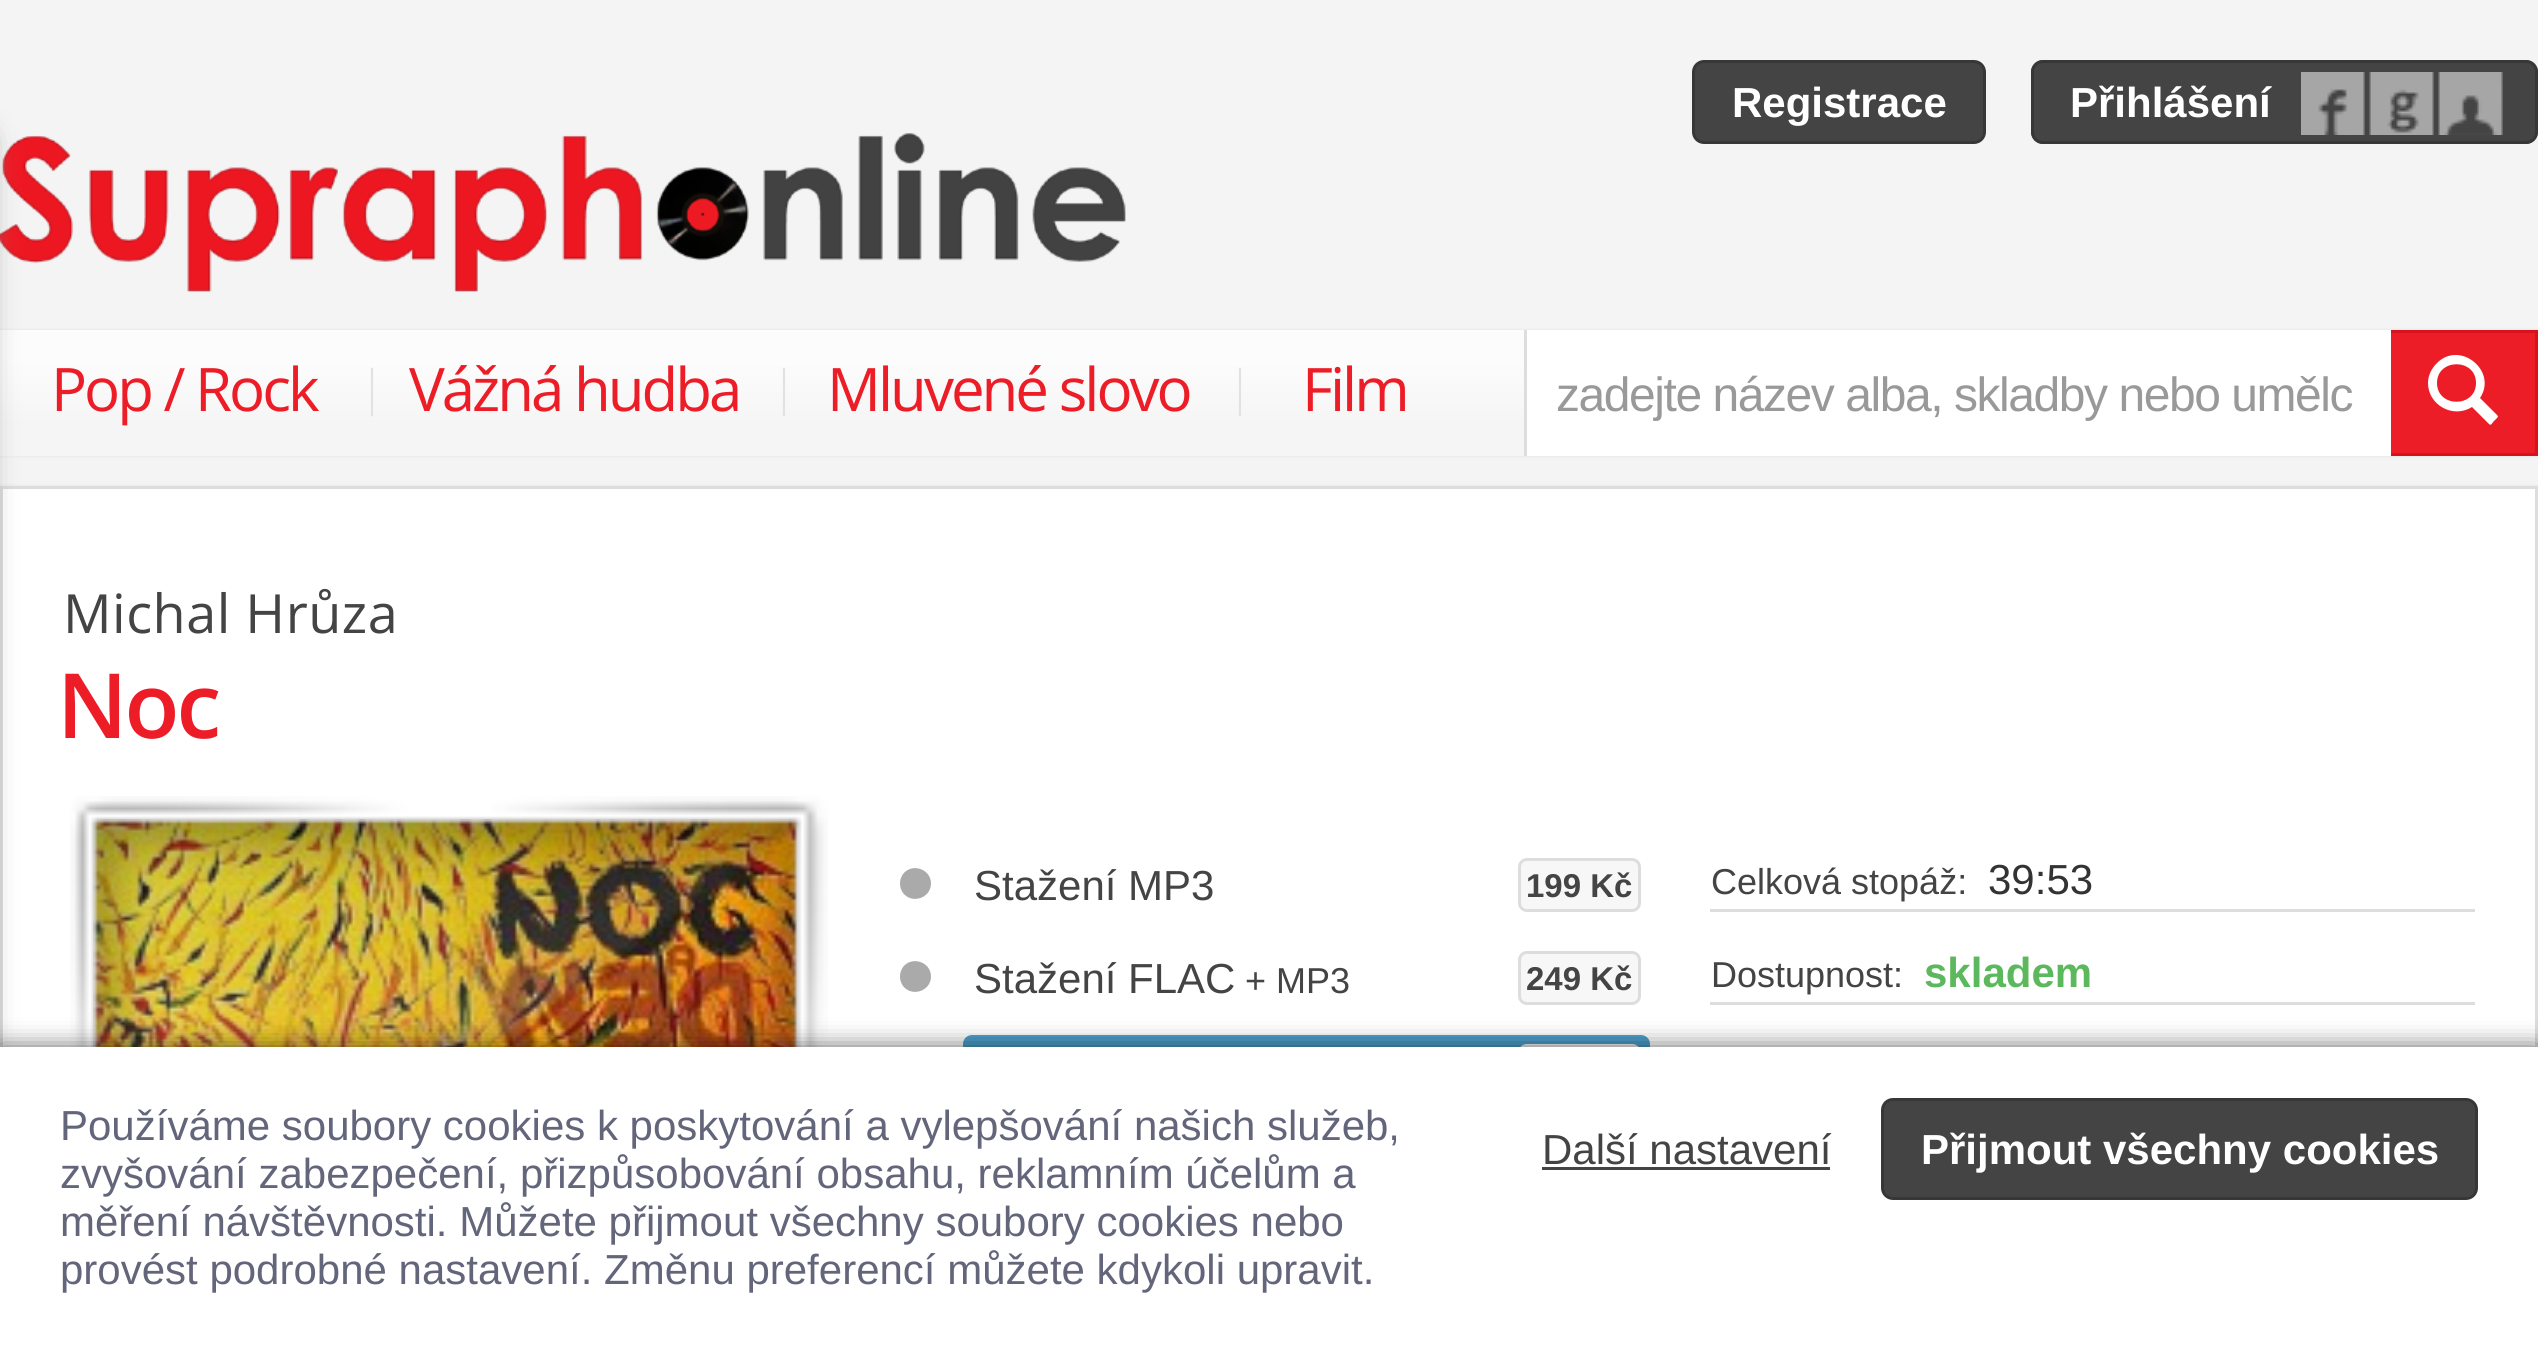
#include <cairo/cairo.h>
#include <math.h>
#include <stddef.h>

static cairo_t *cr;

static void use_color(int r, int g, int b) {
  cairo_set_source_rgb(cr, r / 255.0, g / 255.0, b / 255.0);
}

static void text(double x, double y, const char *s, const char *family, double size, int italic, int bold, int r, int g, int b) {
  cairo_select_font_face(cr, family, italic ? CAIRO_FONT_SLANT_ITALIC : CAIRO_FONT_SLANT_NORMAL,
    bold ? CAIRO_FONT_WEIGHT_BOLD : CAIRO_FONT_WEIGHT_NORMAL);
  cairo_set_font_size(cr, size);
  use_color(r, g, b);
  cairo_move_to(cr, x, y);
  cairo_show_text(cr, s);
}

static void spaced_text(double x, double y, const char *s, double letter, double word) {
  cairo_move_to(cr, x, y);
  while (*s) {
    char ch[5] = {0};
    int n = 0;
    do ch[n++] = *s++; while ((*s & 0xC0) == 0x80);
    cairo_show_text(cr, ch);
    cairo_rel_move_to(cr, letter + word * (*ch == ' '), 0);
  }
}

static void box(double x, double y, double w, double h, int r, int g, int b) {
  use_color(r, g, b);
  cairo_rectangle(cr, x, y, w, h);
  cairo_fill(cr);
}

static void round_rect(double x, double y, double w, double h, double r) {
  cairo_new_sub_path(cr);
  cairo_arc(cr, x + w - r, y + h - r, r, 0, M_PI / 2);
  cairo_arc(cr, x + r, y + h - r, r, M_PI / 2, M_PI);
  cairo_arc(cr, x + r, y + r, r, M_PI, 1.5 * M_PI);
  cairo_arc(cr, x + w - r, y + r, r, 1.5 * M_PI, 2 * M_PI);
  cairo_close_path(cr);
}

static void shadow(double x, double y, double w, double h, double r, double blur, double alpha) {
  cairo_push_group_with_content(cr, CAIRO_CONTENT_ALPHA);
  cairo_set_operator(cr, CAIRO_OPERATOR_SOURCE);
  for (int i = 15; i >= -15 && fmin(w, h) + blur * i / 3 > 0; i -= 2) {
    double e = blur * i / 6;
    cairo_set_source_rgba(cr, 0, 0, 0, alpha * erfc((i - 1) / 8.5) / 2);
    round_rect(x - e, y - e, w + 2 * e, h + 2 * e, fmax(0, fmin(r + e + blur * .6, fmin(w, h) / 2 + e)));
    cairo_fill(cr);
  }
  cairo_pattern_t *soft = cairo_pop_group(cr);
  cairo_mask(cr, soft);
  cairo_pattern_destroy(soft);
}

static void picture(const char *path, double x, double y, double w, double h) {
  cairo_surface_t *image = cairo_image_surface_create_from_png(path);
  cairo_save(cr);
  cairo_set_source_surface(cr, image, x, y);
  cairo_rectangle(cr, x, y, w, h);
  cairo_fill(cr);
  cairo_restore(cr);
  cairo_surface_destroy(image);
}

static void draw(void) {
  cairo_pattern_t *gradient;
  use_color(244, 244, 244);
  cairo_paint(cr);
  picture("img_02.png", 0, 133, 1126, 159);
  use_color(225, 225, 225);
  shadow(0, 330, 2538, 126, 0, 1.5, 1);
  gradient = cairo_pattern_create_linear(1269, 330, 1269, 456);
  cairo_pattern_add_color_stop_rgba(gradient, 0.25, 0.988, 0.988, 0.988, 1);
  cairo_pattern_add_color_stop_rgba(gradient, 0.75, 0.961, 0.961, 0.961, 1);
  cairo_set_source(cr, gradient);
  cairo_pattern_destroy(gradient);
  cairo_rectangle(cr, 0, 330, 1524, 126);
  cairo_fill(cr);
  use_color(225, 225, 225);
  shadow(0, 486, 2538, 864, 0, 1.5, 1);
  box(3, 489, 2532, 558, 255, 255, 255);
  cairo_rectangle(cr, 1.5, 487.5, 2535, 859);
  use_color(221, 221, 221);
  cairo_set_line_width(cr, 3);
  cairo_stroke(cr);
  use_color(139, 139, 139);
  shadow(-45, 138, 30, 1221, 0, 15, 1);
  use_color(69, 68, 68);
  round_rect(1693.5, 61.5, 291, 81, 10.5);
  cairo_fill_preserve(cr);
  use_color(56, 55, 55);
  cairo_stroke(cr);
  use_color(69, 68, 68);
  round_rect(2031, 60, 507, 84, 12);
  cairo_fill(cr);
  picture("img_01.png", 2301, 72, 202, 63);
  round_rect(2032.5, 61.5, 504, 81, 10.5);
  use_color(56, 55, 55);
  cairo_stroke(cr);
  use_color(236, 29, 39);
  cairo_rectangle(cr, 2389.5, 331.5, 147, 123);
  cairo_fill_preserve(cr);
  use_color(216, 18, 28);
  cairo_stroke(cr);
  box(1527, 330, 864, 126, 255, 255, 255);
  box(1524, 330, 3, 126, 221, 221, 221);
  use_color(255, 255, 255);
  cairo_new_path(cr);
  cairo_move_to(cr, 2428, 383);
  cairo_curve_to(cr, 2428, 376, 2431, 369, 2437, 363);
  cairo_curve_to(cr, 2460, 340, 2498, 371, 2480, 398);
  cairo_line_to(cr, 2495, 413);
  cairo_curve_to(cr, 2499, 417, 2499, 416, 2494, 421);
  cairo_curve_to(cr, 2490, 426, 2491, 426, 2486, 421);
  cairo_line_to(cr, 2472, 407);
  cairo_curve_to(cr, 2453, 419, 2428, 405, 2428, 383);
  cairo_close_path(cr);
  cairo_move_to(cr, 2437, 383);
  cairo_curve_to(cr, 2437, 408, 2476, 408, 2476, 383);
  cairo_curve_to(cr, 2476, 358, 2437, 358, 2437, 383);
  cairo_close_path(cr);
  cairo_fill(cr);
  picture("img_04.png", 93, 819, 704, 228);
  picture("img_03.png", 70, 796, 758, 251);
  use_color(170, 170, 170);
  cairo_new_path(cr);
  cairo_move_to(cr, 900, 883.5);
  cairo_curve_to(cr, 900, 880, 901, 877, 903, 874);
  cairo_curve_to(cr, 912, 862.5, 931, 869, 931, 883.5);
  cairo_curve_to(cr, 931, 898, 912, 904.5, 903, 893);
  cairo_curve_to(cr, 901, 890, 900, 887, 900, 883.5);
  cairo_close_path(cr);
  cairo_fill(cr);
  use_color(247, 247, 247);
  round_rect(1519.5, 859.5, 120, 51, 7.5);
  cairo_fill_preserve(cr);
  use_color(221, 221, 221);
  cairo_stroke(cr);
  use_color(170, 170, 170);
  cairo_new_path(cr);
  cairo_move_to(cr, 900, 976.5);
  cairo_curve_to(cr, 900, 973, 901, 970, 903, 967);
  cairo_curve_to(cr, 912, 955.5, 931, 962, 931, 976.5);
  cairo_curve_to(cr, 931, 991, 912, 997.5, 903, 986);
  cairo_curve_to(cr, 901, 983, 900, 980, 900, 976.5);
  cairo_close_path(cr);
  cairo_fill(cr);
  use_color(247, 247, 247);
  round_rect(1519.5, 952.5, 120, 51, 7.5);
  cairo_fill_preserve(cr);
  use_color(221, 221, 221);
  cairo_stroke(cr);
  use_color(77, 159, 204);
  round_rect(963, 1035, 687, 72, 9);
  cairo_fill(cr);
  use_color(247, 247, 247);
  round_rect(1518, 1044, 123, 54, 9);
  cairo_fill(cr);
  box(1710, 909, 765, 3, 221, 221, 221);
  box(1710, 1002, 765, 3, 221, 221, 221);
  use_color(0, 0, 0);
  shadow(0, 1047, 2538, 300, 0, 12, 0.6);
  box(0, 1047, 2538, 298, 255, 255, 255);
  box(1542, 1167, 288, 3, 69, 68, 68);
  round_rect(1882.5, 1099.5, 594, 99, 10.5);
  cairo_fill_preserve(cr);
  use_color(56, 55, 55);
  cairo_stroke(cr);
  text(1732, 117, "Registrace", "Liberation Sans", 42, 0, 1, 255, 255, 255);
  text(2070, 117, "Přihlášení", "Liberation Sans", 42, 0, 1, 255, 255, 255);
  cairo_select_font_face(cr, "Open Sans", CAIRO_FONT_SLANT_NORMAL, CAIRO_FONT_WEIGHT_NORMAL);
  cairo_set_font_size(cr, 60);
  use_color(236, 29, 39);
  spaced_text(51, 411, "Pop / Rock", -3, 0);
  text(359, 411, "|", "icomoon", 48, 0, 0, 226, 226, 226);
  cairo_select_font_face(cr, "Open Sans", CAIRO_FONT_SLANT_NORMAL, CAIRO_FONT_WEIGHT_NORMAL);
  cairo_set_font_size(cr, 60);
  use_color(236, 29, 39);
  spaced_text(409, 411, "Vážná hudba", -3, 0);
  text(771, 411, "|", "icomoon", 48, 0, 0, 226, 226, 226);
  cairo_select_font_face(cr, "Open Sans", CAIRO_FONT_SLANT_NORMAL, CAIRO_FONT_WEIGHT_NORMAL);
  cairo_set_font_size(cr, 60);
  use_color(236, 29, 39);
  spaced_text(827, 411, "Mluvené slovo", -3, 0);
  text(1227, 411, "|", "icomoon", 48, 0, 0, 226, 226, 226);
  cairo_select_font_face(cr, "Open Sans", CAIRO_FONT_SLANT_NORMAL, CAIRO_FONT_WEIGHT_NORMAL);
  cairo_set_font_size(cr, 60);
  use_color(236, 29, 39);
  spaced_text(1302, 411, "Film", -3, 0);
  cairo_select_font_face(cr, "Liberation Sans", CAIRO_FONT_SLANT_NORMAL, CAIRO_FONT_WEIGHT_NORMAL);
  cairo_set_font_size(cr, 48);
  use_color(153, 153, 153);
  spaced_text(1556, 411, "zadejte název alba, skladby nebo umělc", -1.45, 0);
  cairo_select_font_face(cr, "Open Sans", CAIRO_FONT_SLANT_NORMAL, CAIRO_FONT_WEIGHT_NORMAL);
  cairo_set_font_size(cr, 54);
  use_color(69, 68, 68);
  spaced_text(63, 633, "Michal Hrůza", 0.5, 0);
  cairo_select_font_face(cr, "Open Sans SemiBold", CAIRO_FONT_SLANT_NORMAL, CAIRO_FONT_WEIGHT_NORMAL);
  cairo_set_font_size(cr, 90);
  use_color(236, 29, 39);
  spaced_text(57, 738, "Noc", -3, 0);
  text(974, 900, "Stažení MP3", "Liberation Sans", 42, 0, 0, 69, 68, 68);
  text(1526, 897, "199 Kč", "Liberation Sans", 33, 0, 1, 69, 68, 68);
  text(974, 993, "Stažení FLAC", "Liberation Sans", 42, 0, 0, 69, 68, 68);
  text(1245, 993, "+ MP3", "Liberation Sans", 36, 0, 0, 69, 68, 68);
  text(1526, 990, "249 Kč", "Liberation Sans", 33, 0, 1, 69, 68, 68);
  text(1711, 894, "Celková stopáž:", "Liberation Sans", 36, 0, 0, 69, 68, 68);
  text(1988, 894, "39:53", "Liberation Sans", 42, 0, 0, 51, 51, 51);
  text(1711, 987, "Dostupnost:", "Liberation Sans", 36, 0, 0, 69, 68, 68);
  text(1924, 987, "skladem", "Liberation Sans", 42, 0, 1, 92, 184, 92);
  text(60, 1140, "Používáme soubory cookies k poskytování a vylepšování našich služeb,", "Liberation Sans", 42, 0, 0, 99, 101, 123);
  text(60, 1188, "zvyšování zabezpečení, přizpůsobování obsahu, reklamním účelům a", "Liberation Sans", 42, 0, 0, 99, 101, 123);
  text(60, 1236, "měření návštěvnosti. Můžete přijmout všechny soubory cookies nebo", "Liberation Sans", 42, 0, 0, 99, 101, 123);
  text(60, 1284, "provést podrobné nastavení. Změnu preferencí můžete kdykoli upravit.", "Liberation Sans", 42, 0, 0, 99, 101, 123);
  text(1542, 1164, "Další nastavení", "Liberation Sans", 42, 0, 0, 69, 68, 68);
  text(1921, 1164, "Přijmout všechny cookies", "Liberation Sans", 42, 0, 1, 255, 255, 255);
}

int main(void) {
  cairo_surface_t *surface = cairo_image_surface_create(CAIRO_FORMAT_RGB24, 2538, 1345);
  cr = cairo_create(surface);
  cairo_font_options_t *options = cairo_font_options_create();
  cairo_font_options_set_hint_metrics(options, CAIRO_HINT_METRICS_OFF);
  cairo_font_options_set_hint_style(options, CAIRO_HINT_STYLE_NONE);
  cairo_set_font_options(cr, options);
  cairo_set_miter_limit(cr, 4);
  draw();
  cairo_surface_write_to_png(surface, "out.png");
  cairo_font_options_destroy(options);
  cairo_destroy(cr);
  cairo_surface_destroy(surface);
  return 0;
}
